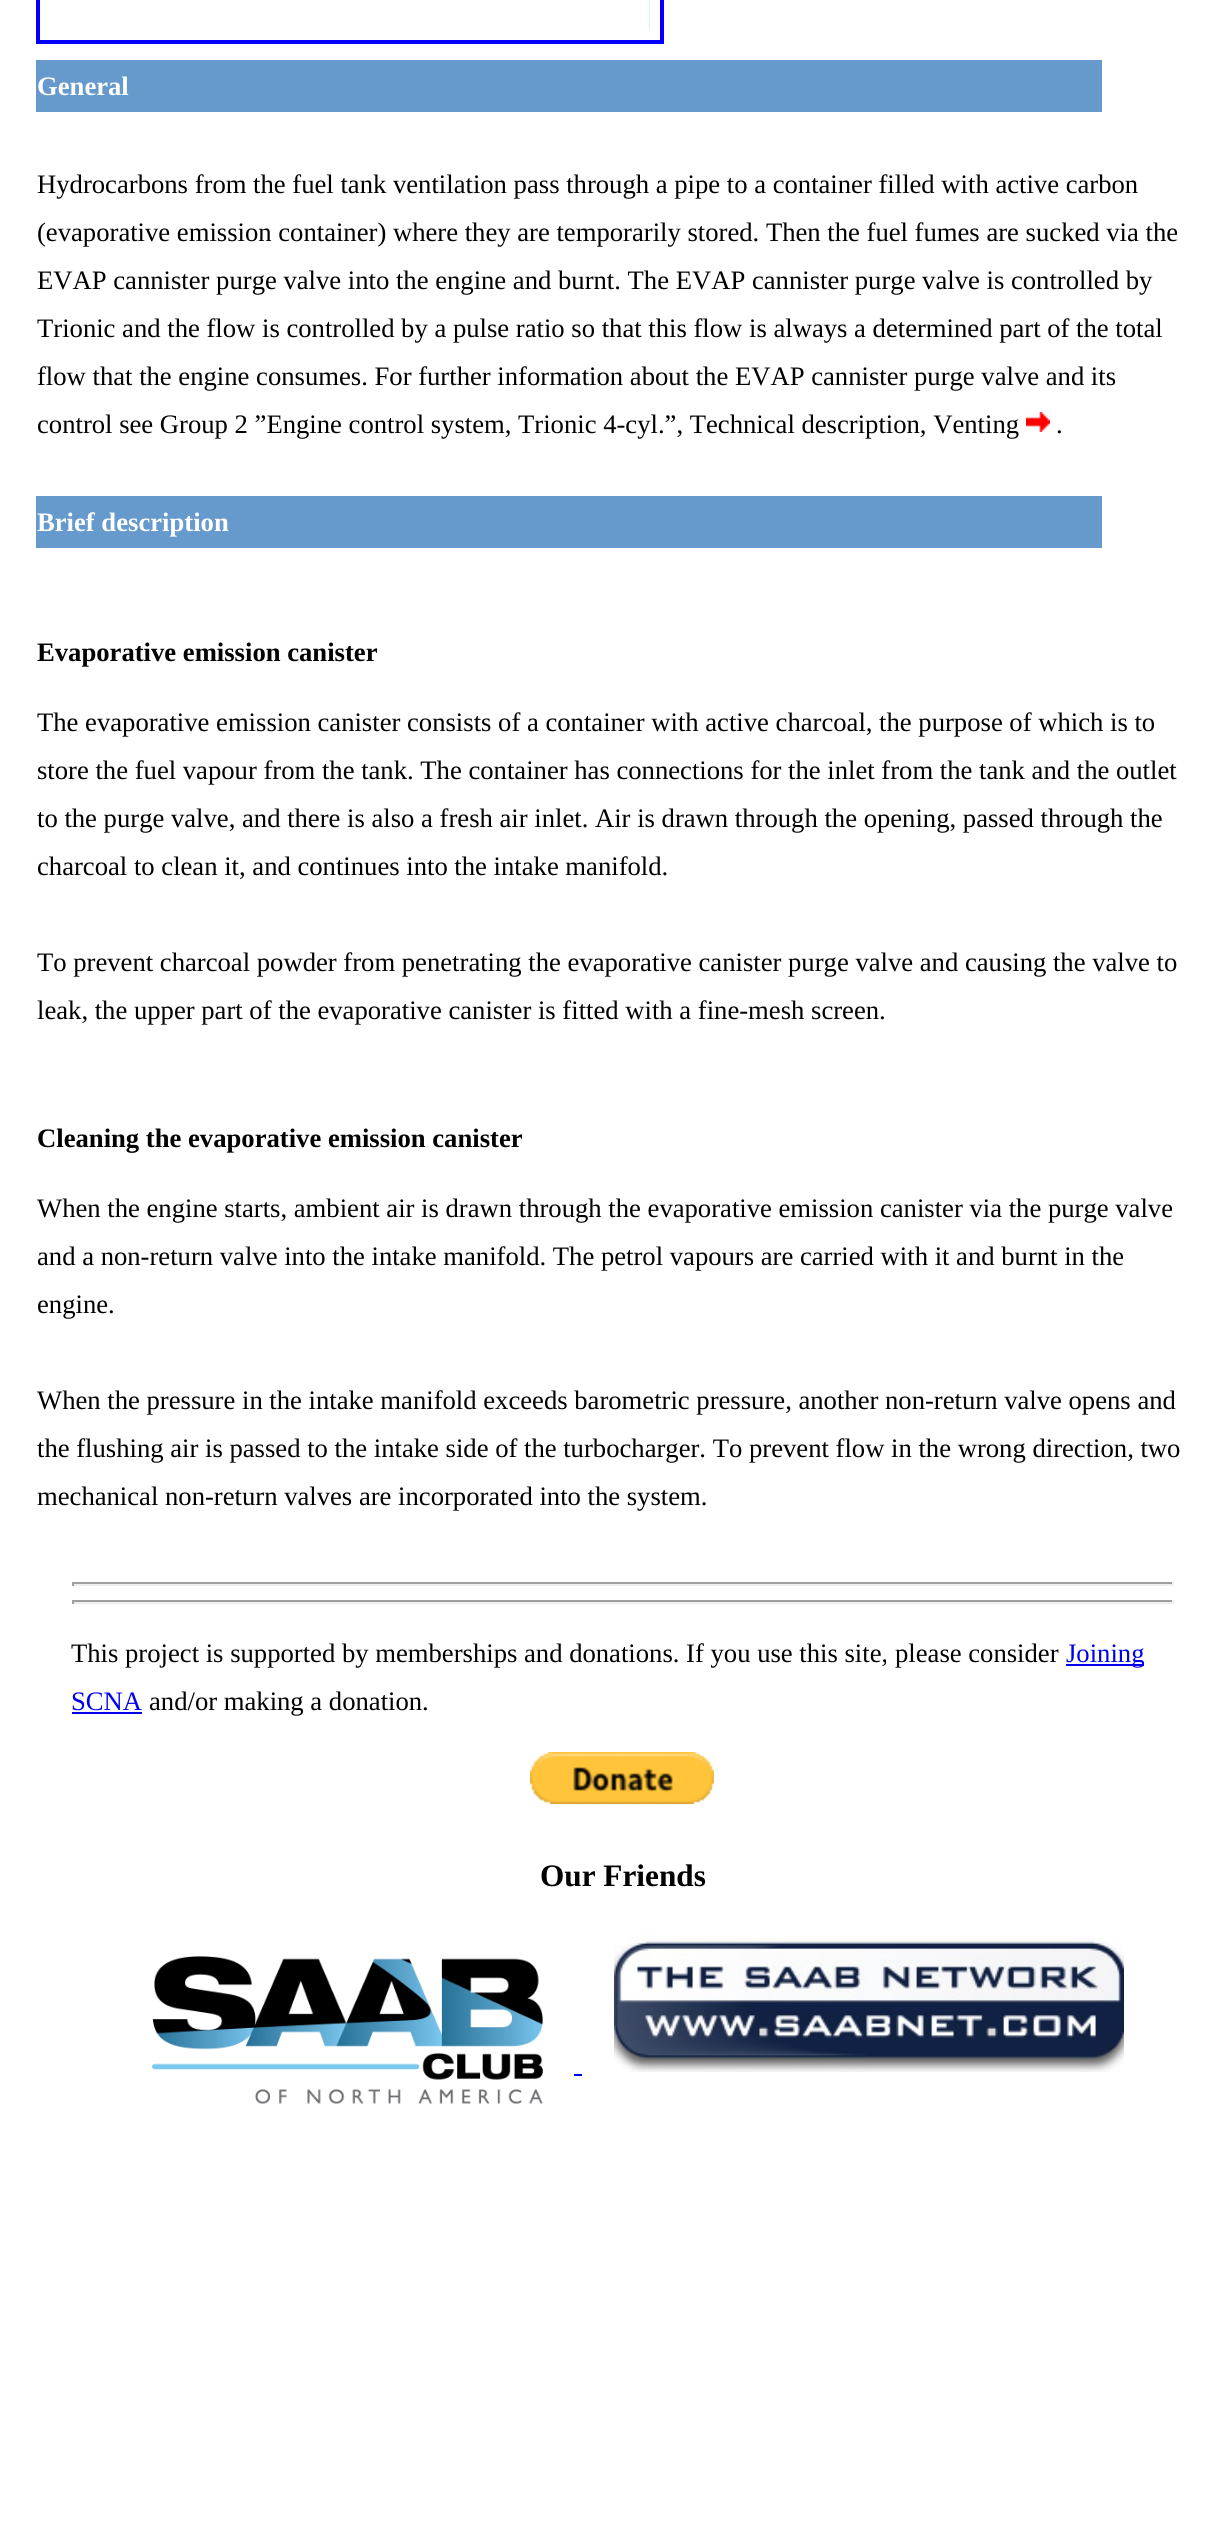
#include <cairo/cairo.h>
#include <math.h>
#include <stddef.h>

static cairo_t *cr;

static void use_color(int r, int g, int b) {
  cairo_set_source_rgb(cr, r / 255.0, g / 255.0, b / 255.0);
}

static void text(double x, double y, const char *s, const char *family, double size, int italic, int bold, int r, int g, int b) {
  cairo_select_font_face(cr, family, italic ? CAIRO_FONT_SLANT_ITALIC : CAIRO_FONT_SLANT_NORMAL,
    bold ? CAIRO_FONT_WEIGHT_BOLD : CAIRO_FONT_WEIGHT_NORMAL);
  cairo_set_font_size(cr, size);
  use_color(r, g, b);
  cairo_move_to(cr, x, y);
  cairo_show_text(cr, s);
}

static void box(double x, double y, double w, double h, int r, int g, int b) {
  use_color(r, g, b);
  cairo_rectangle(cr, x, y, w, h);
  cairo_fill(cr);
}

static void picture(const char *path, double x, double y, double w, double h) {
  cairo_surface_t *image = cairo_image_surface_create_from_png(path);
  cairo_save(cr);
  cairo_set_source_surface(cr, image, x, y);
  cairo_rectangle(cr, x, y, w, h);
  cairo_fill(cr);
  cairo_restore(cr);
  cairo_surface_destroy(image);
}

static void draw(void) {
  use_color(255, 255, 255);
  cairo_paint(cr);
  cairo_rectangle(cr, 38, -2, 624, 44);
  use_color(0, 0, 255);
  cairo_set_line_width(cr, 4);
  cairo_stroke(cr);
  picture("img_01.png", 648, 0, 2, 30);
  box(36, 60, 1066, 52, 102, 153, 204);
  picture("img_02.png", 1026, 412, 24, 20);
  box(36, 496, 1066, 52, 102, 153, 204);
  box(72, 1582, 1102, 2, 159, 159, 159);
  box(1172, 1582, 2, 4, 238, 238, 238);
  box(72, 1584, 1102, 2, 238, 238, 238);
  box(72, 1582, 2, 4, 159, 159, 159);
  box(72, 1600, 1102, 2, 159, 159, 159);
  box(1172, 1600, 2, 4, 238, 238, 238);
  box(72, 1602, 1102, 2, 238, 238, 238);
  box(72, 1600, 2, 4, 159, 159, 159);
  box(1066, 1664, 78, 2, 0, 0, 238);
  box(72, 1712, 70, 2, 0, 0, 238);
  picture("img_03.png", 530, 1752, 184, 52);
  picture("img_04.png", 152, 1956, 391, 148);
  box(574, 2074, 8, 2, 0, 0, 238);
  picture("img_05.png", 614, 1934, 510, 138);
  text(37, 95, "General", "Liberation Serif", 26.65, 0, 1, 255, 255, 255);
  text(37, 193, "Hydrocarbons from the fuel tank ventilation pass through a pipe to a container filled with active carbon", "Liberation Serif", 26.65, 0, 0, 0, 0, 0);
  text(37, 241, "(evaporative emission container) where they are temporarily stored. Then the fuel fumes are sucked via the", "Liberation Serif", 26.65, 0, 0, 0, 0, 0);
  text(37, 289, "EVAP cannister purge valve into the engine and burnt. The EVAP cannister purge valve is controlled by", "Liberation Serif", 26.65, 0, 0, 0, 0, 0);
  text(37, 337, "Trionic and the flow is controlled by a pulse ratio so that this flow is always a determined part of the total", "Liberation Serif", 26.65, 0, 0, 0, 0, 0);
  text(37, 385, "flow that the engine consumes. For further information about the EVAP cannister purge valve and its", "Liberation Serif", 26.65, 0, 0, 0, 0, 0);
  text(37, 433, "control see Group 2 ”Engine control system, Trionic 4-cyl.”, Technical description, Venting", "Liberation Serif", 26.65, 0, 0, 0, 0, 0);
  text(1056, 433, ".", "Liberation Serif", 26.65, 0, 0, 0, 0, 0);
  text(37, 531, "Brief description", "Liberation Serif", 26.65, 0, 1, 255, 255, 255);
  text(37, 661, "Evaporative emission canister", "Liberation Serif", 26.65, 0, 1, 0, 0, 0);
  text(37, 731, "The evaporative emission canister consists of a container with active charcoal, the purpose of which is to", "Liberation Serif", 26.65, 0, 0, 0, 0, 0);
  text(37, 779, "store the fuel vapour from the tank. The container has connections for the inlet from the tank and the outlet", "Liberation Serif", 26.65, 0, 0, 0, 0, 0);
  text(37, 827, "to the purge valve, and there is also a fresh air inlet. Air is drawn through the opening, passed through the", "Liberation Serif", 26.65, 0, 0, 0, 0, 0);
  text(37, 875, "charcoal to clean it, and continues into the intake manifold.", "Liberation Serif", 26.65, 0, 0, 0, 0, 0);
  text(37, 971, "To prevent charcoal powder from penetrating the evaporative canister purge valve and causing the valve to", "Liberation Serif", 26.65, 0, 0, 0, 0, 0);
  text(37, 1019, "leak, the upper part of the evaporative canister is fitted with a fine-mesh screen.", "Liberation Serif", 26.65, 0, 0, 0, 0, 0);
  text(37, 1147, "Cleaning the evaporative emission canister", "Liberation Serif", 26.65, 0, 1, 0, 0, 0);
  text(37, 1217, "When the engine starts, ambient air is drawn through the evaporative emission canister via the purge valve", "Liberation Serif", 26.65, 0, 0, 0, 0, 0);
  text(37, 1265, "and a non-return valve into the intake manifold. The petrol vapours are carried with it and burnt in the", "Liberation Serif", 26.65, 0, 0, 0, 0, 0);
  text(37, 1313, "engine.", "Liberation Serif", 26.65, 0, 0, 0, 0, 0);
  text(37, 1409, "When the pressure in the intake manifold exceeds barometric pressure, another non-return valve opens and", "Liberation Serif", 26.65, 0, 0, 0, 0, 0);
  text(37, 1457, "the flushing air is passed to the intake side of the turbocharger. To prevent flow in the wrong direction, two", "Liberation Serif", 26.65, 0, 0, 0, 0, 0);
  text(37, 1505, "mechanical non-return valves are incorporated into the system.", "Liberation Serif", 26.65, 0, 0, 0, 0, 0);
  text(71, 1662, "This project is supported by memberships and donations. If you use this site,", "Liberation Serif", 26.65, 0, 0, 0, 0, 0);
  text(895, 1662, "please consider", "Liberation Serif", 26.65, 0, 0, 0, 0, 0);
  text(1066, 1662, "Joining", "Liberation Serif", 26.65, 0, 0, 0, 0, 238);
  text(71, 1710, "SCNA", "Liberation Serif", 26.65, 0, 0, 0, 0, 238);
  text(149, 1710, "and/or making a donation.", "Liberation Serif", 26.65, 0, 0, 0, 0, 0);
  text(540, 1886, "Our Friends", "Liberation Serif", 31.25, 0, 1, 0, 0, 0);
}

int main(void) {
  cairo_surface_t *surface = cairo_image_surface_create(CAIRO_FORMAT_RGB24, 1219, 2524);
  cr = cairo_create(surface);
  cairo_font_options_t *options = cairo_font_options_create();
  cairo_font_options_set_hint_metrics(options, CAIRO_HINT_METRICS_OFF);
  cairo_font_options_set_hint_style(options, CAIRO_HINT_STYLE_NONE);
  cairo_set_font_options(cr, options);
  cairo_set_miter_limit(cr, 4);
  draw();
  cairo_surface_write_to_png(surface, "out.png");
  cairo_font_options_destroy(options);
  cairo_destroy(cr);
  cairo_surface_destroy(surface);
  return 0;
}
